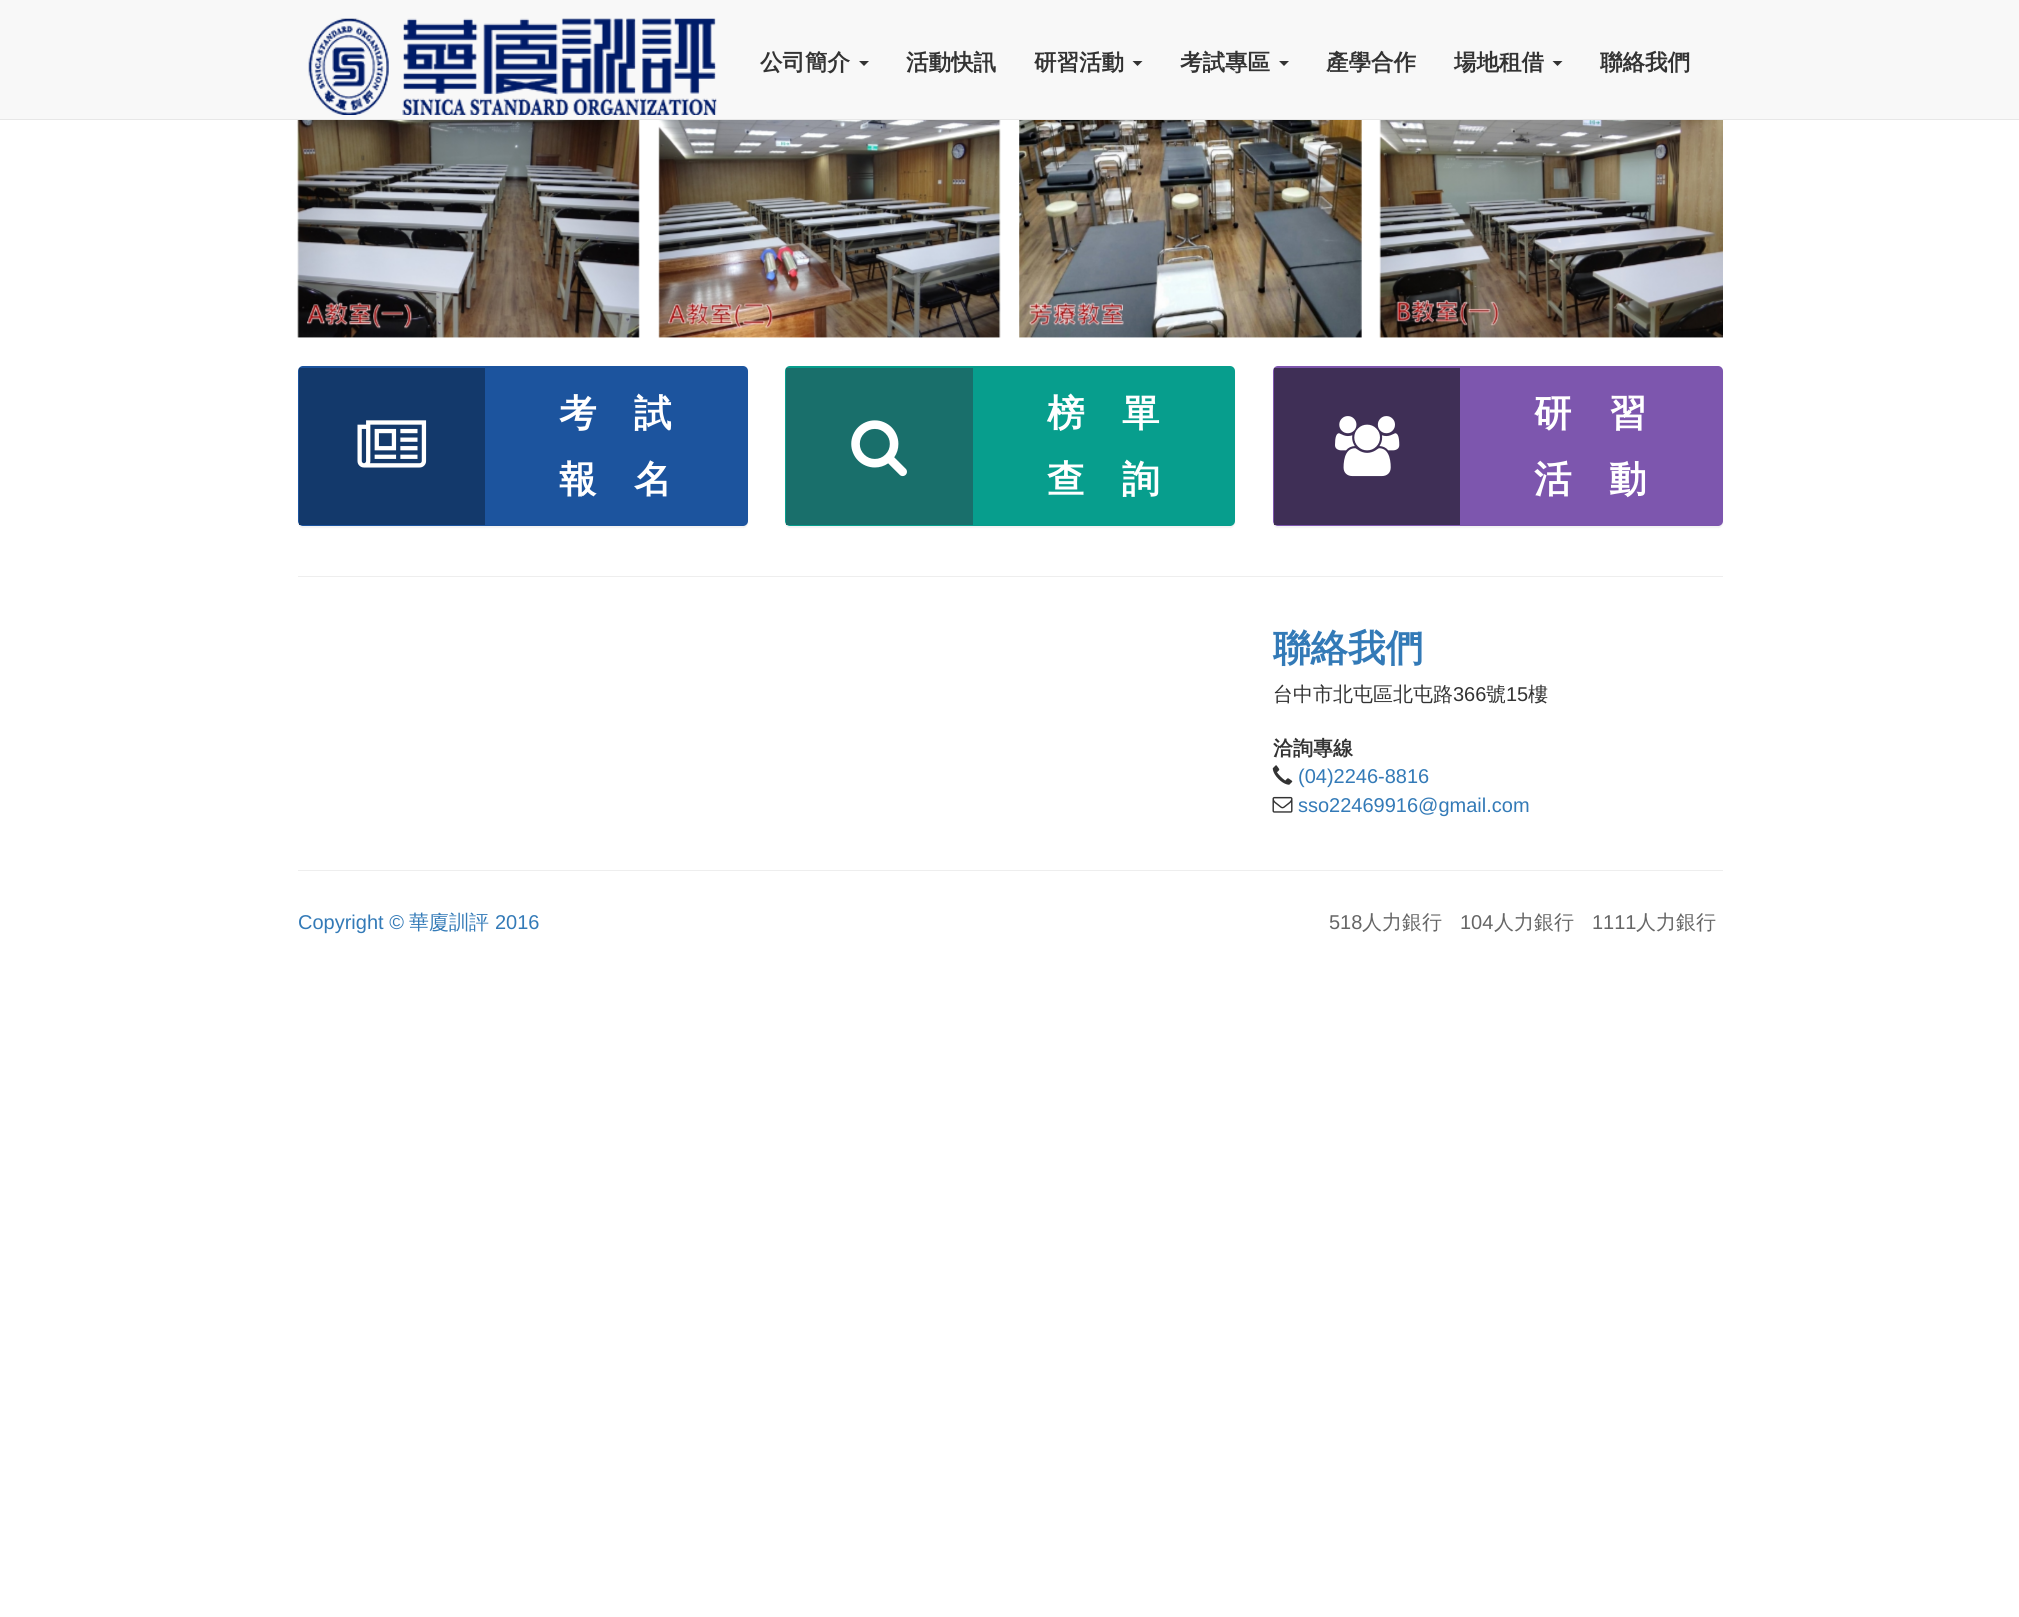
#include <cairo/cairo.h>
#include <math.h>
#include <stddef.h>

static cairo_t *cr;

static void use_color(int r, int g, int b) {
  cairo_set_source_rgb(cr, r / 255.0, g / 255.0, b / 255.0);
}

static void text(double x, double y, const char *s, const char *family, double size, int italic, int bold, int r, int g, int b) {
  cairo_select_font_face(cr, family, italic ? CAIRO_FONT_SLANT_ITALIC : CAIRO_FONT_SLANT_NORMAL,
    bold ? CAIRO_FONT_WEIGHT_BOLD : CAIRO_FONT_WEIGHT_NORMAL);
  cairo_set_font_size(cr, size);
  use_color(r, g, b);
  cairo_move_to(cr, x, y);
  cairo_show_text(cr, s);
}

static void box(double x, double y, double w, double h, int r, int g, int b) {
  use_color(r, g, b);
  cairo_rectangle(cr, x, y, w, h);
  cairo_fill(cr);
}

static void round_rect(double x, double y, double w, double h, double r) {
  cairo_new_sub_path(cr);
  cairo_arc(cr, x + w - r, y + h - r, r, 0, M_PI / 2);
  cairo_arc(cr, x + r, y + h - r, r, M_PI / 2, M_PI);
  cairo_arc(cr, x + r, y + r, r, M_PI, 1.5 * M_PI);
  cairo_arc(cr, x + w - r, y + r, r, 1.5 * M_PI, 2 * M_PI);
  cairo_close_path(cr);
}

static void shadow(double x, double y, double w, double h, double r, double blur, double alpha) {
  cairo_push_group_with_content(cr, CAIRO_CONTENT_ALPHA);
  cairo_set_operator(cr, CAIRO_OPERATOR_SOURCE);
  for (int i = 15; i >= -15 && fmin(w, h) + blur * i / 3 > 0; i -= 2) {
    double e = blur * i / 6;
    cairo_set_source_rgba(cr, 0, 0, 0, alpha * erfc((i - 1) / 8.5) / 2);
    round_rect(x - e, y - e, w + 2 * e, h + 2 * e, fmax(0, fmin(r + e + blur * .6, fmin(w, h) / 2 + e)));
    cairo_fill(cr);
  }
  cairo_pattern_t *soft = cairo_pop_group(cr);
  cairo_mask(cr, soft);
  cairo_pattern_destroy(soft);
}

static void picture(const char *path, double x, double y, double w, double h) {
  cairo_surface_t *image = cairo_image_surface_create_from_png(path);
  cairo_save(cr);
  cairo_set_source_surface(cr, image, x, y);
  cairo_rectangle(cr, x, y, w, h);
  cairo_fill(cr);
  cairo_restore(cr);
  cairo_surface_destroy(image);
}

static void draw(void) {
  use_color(255, 255, 255);
  cairo_paint(cr);
  box(0, 0, 2019, 119, 248, 248, 248);
  box(0, 119, 2019, 1, 231, 231, 231);
  picture("img_01.png", 308, 18, 409, 97);
  use_color(51, 51, 51);
  cairo_new_path(cr);
  cairo_move_to(cr, 859, 61);
  cairo_line_to(cr, 869, 61);
  cairo_line_to(cr, 864, 66);
  cairo_close_path(cr);
  cairo_fill(cr);
  cairo_new_path(cr);
  cairo_move_to(cr, 1132.5, 61);
  cairo_line_to(cr, 1142.5, 61);
  cairo_line_to(cr, 1137.5, 66);
  cairo_close_path(cr);
  cairo_fill(cr);
  cairo_new_path(cr);
  cairo_move_to(cr, 1279, 61);
  cairo_line_to(cr, 1289, 61);
  cairo_line_to(cr, 1284, 66);
  cairo_close_path(cr);
  cairo_fill(cr);
  cairo_new_path(cr);
  cairo_move_to(cr, 1552.5, 61);
  cairo_line_to(cr, 1562.5, 61);
  cairo_line_to(cr, 1557.5, 66);
  cairo_close_path(cr);
  cairo_fill(cr);
  picture("img_02.png", 297, 120, 343, 218);
  picture("img_03.png", 658, 120, 343, 218);
  picture("img_04.png", 1019, 120, 343, 218);
  picture("img_05.png", 1379, 120, 344, 218);
  use_color(0, 0, 0);
  shadow(298, 368, 450, 160, 5, 0.5, 0.05);
  use_color(28, 84, 158);
  round_rect(298, 366, 450, 160, 5);
  cairo_fill(cr);
  box(299, 368, 186, 157, 19, 57, 107);
  picture("img_06.png", 357, 420, 70, 48);
  use_color(0, 0, 0);
  shadow(785, 368, 450, 160, 5, 0.5, 0.05);
  use_color(7, 158, 141);
  round_rect(785, 366, 450, 160, 5);
  cairo_fill(cr);
  box(786, 368, 187, 157, 25, 111, 107);
  picture("img_07.png", 851, 420, 56, 57);
  use_color(0, 0, 0);
  shadow(1273, 368, 450, 160, 5, 0.5, 0.05);
  use_color(125, 86, 174);
  round_rect(1273, 366, 450, 160, 5);
  cairo_fill(cr);
  box(1274, 368, 186, 157, 63, 47, 86);
  picture("img_08.png", 1335, 416, 65, 61);
  box(298, 576, 1425, 1, 238, 238, 238);
  picture("img_09.png", 1272, 765, 21, 20);
  picture("img_10.png", 1272, 796, 21, 17);
  box(298, 870, 1425, 1, 238, 238, 238);
  text(760, 70, "公司簡介", "WenQuanYi Zen Hei", 22.5, 0, 1, 51, 51, 51);
  text(906, 70, "活動快訊", "WenQuanYi Zen Hei", 22.5, 0, 1, 51, 51, 51);
  text(1034, 70, "研習活動", "WenQuanYi Zen Hei", 22.5, 0, 1, 51, 51, 51);
  text(1180, 70, "考試專區", "WenQuanYi Zen Hei", 22.5, 0, 1, 51, 51, 51);
  text(1326, 70, "產學合作", "WenQuanYi Zen Hei", 22.5, 0, 1, 51, 51, 51);
  text(1454, 70, "場地租借", "WenQuanYi Zen Hei", 22.5, 0, 1, 51, 51, 51);
  text(1600, 70, "聯絡我們", "WenQuanYi Zen Hei", 22.5, 0, 1, 51, 51, 51);
  text(559, 426, "考　試", "WenQuanYi Zen Hei", 37.5, 0, 1, 255, 255, 255);
  text(559, 492, "報　名", "WenQuanYi Zen Hei", 37.5, 0, 1, 255, 255, 255);
  text(1047, 426, "榜　單", "WenQuanYi Zen Hei", 37.5, 0, 1, 255, 255, 255);
  text(1047, 492, "查　詢", "WenQuanYi Zen Hei", 37.5, 0, 1, 255, 255, 255);
  text(1534, 426, "研　習", "WenQuanYi Zen Hei", 37.5, 0, 1, 255, 255, 255);
  text(1534, 492, "活　動", "WenQuanYi Zen Hei", 37.5, 0, 1, 255, 255, 255);
  text(1273, 661, "聯絡我們", "WenQuanYi Zen Hei", 37.5, 0, 1, 51, 122, 183);
  text(1273, 701, "台中市北屯區北屯路", "WenQuanYi Zen Hei Medium", 20, 0, 0, 51, 51, 51);
  text(1453, 701, "366", "Liberation Sans", 20, 0, 0, 51, 51, 51);
  text(1486, 701, "號", "WenQuanYi Zen Hei Medium", 20, 0, 0, 51, 51, 51);
  text(1506, 701, "15", "Liberation Sans", 20, 0, 0, 51, 51, 51);
  text(1528, 701, "樓", "WenQuanYi Zen Hei Medium", 20, 0, 0, 51, 51, 51);
  text(1273, 755, "洽詢專線", "WenQuanYi Zen Hei", 20, 0, 1, 51, 51, 51);
  text(1298, 783, "(04)2246-8816", "Liberation Sans", 20, 0, 0, 51, 122, 183);
  text(1298, 812, "sso22469916@gmail.com", "Liberation Sans", 20, 0, 0, 51, 122, 183);
  text(298, 929, "Copyright ©", "Liberation Sans", 20, 0, 0, 51, 122, 183);
  text(409, 929, "華廈訓評", "WenQuanYi Zen Hei Medium", 20, 0, 0, 51, 122, 183);
  text(495, 929, "2016", "Liberation Sans", 20, 0, 0, 51, 122, 183);
  text(1329, 929, "518", "Liberation Sans", 20, 0, 0, 102, 102, 102);
  text(1362, 929, "人力銀行", "WenQuanYi Zen Hei Medium", 20, 0, 0, 102, 102, 102);
  text(1460, 929, "104", "Liberation Sans", 20, 0, 0, 102, 102, 102);
  text(1494, 929, "人力銀行", "WenQuanYi Zen Hei Medium", 20, 0, 0, 102, 102, 102);
  text(1592, 929, "1111", "Liberation Sans", 20, 0, 0, 102, 102, 102);
  text(1636, 929, "人力銀行", "WenQuanYi Zen Hei Medium", 20, 0, 0, 102, 102, 102);
}

int main(void) {
  cairo_surface_t *surface = cairo_image_surface_create(CAIRO_FORMAT_RGB24, 2019, 1617);
  cr = cairo_create(surface);
  cairo_font_options_t *options = cairo_font_options_create();
  cairo_font_options_set_hint_metrics(options, CAIRO_HINT_METRICS_OFF);
  cairo_font_options_set_hint_style(options, CAIRO_HINT_STYLE_NONE);
  cairo_set_font_options(cr, options);
  cairo_set_miter_limit(cr, 4);
  draw();
  cairo_surface_write_to_png(surface, "out.png");
  cairo_font_options_destroy(options);
  cairo_destroy(cr);
  cairo_surface_destroy(surface);
  return 0;
}
